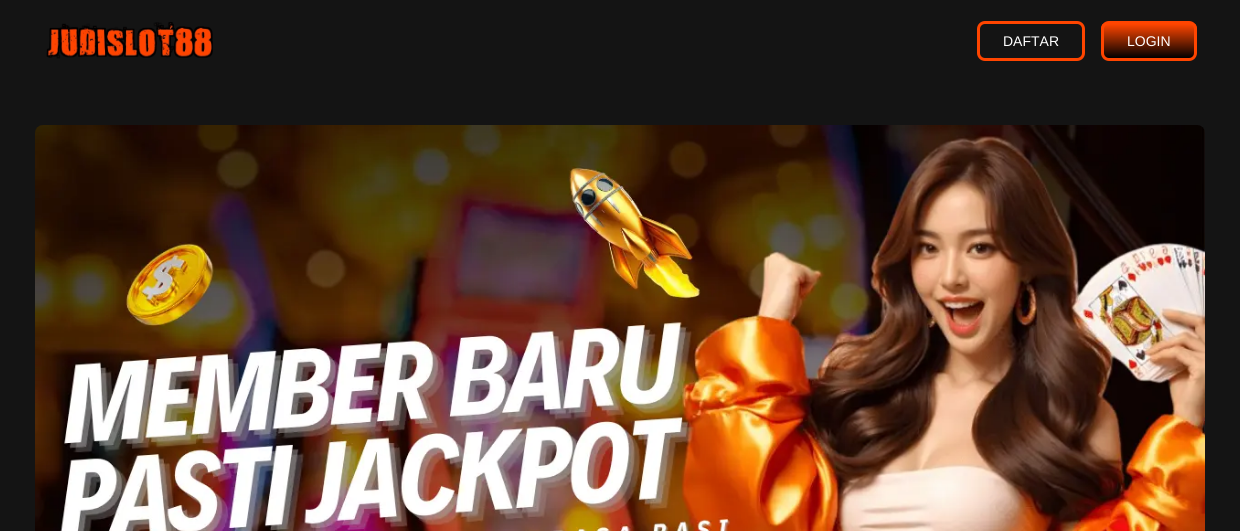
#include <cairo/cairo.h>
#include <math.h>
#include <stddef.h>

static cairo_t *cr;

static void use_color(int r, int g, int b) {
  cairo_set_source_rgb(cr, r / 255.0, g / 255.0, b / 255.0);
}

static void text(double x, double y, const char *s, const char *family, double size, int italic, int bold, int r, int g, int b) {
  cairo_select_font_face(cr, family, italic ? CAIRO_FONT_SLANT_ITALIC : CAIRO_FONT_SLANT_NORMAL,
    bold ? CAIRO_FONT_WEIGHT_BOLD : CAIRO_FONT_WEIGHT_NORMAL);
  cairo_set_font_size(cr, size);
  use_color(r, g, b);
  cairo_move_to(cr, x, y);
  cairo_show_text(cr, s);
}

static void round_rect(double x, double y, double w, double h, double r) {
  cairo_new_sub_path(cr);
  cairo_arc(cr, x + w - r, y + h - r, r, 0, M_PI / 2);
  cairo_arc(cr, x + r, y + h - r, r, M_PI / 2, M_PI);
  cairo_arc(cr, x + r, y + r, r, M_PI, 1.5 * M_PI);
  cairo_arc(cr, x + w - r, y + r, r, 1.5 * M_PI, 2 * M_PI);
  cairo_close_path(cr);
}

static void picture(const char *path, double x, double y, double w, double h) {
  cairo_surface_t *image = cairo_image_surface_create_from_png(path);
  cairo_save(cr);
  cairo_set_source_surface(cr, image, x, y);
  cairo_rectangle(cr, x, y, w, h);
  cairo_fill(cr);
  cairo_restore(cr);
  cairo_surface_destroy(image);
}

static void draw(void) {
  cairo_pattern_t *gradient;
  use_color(20, 20, 20);
  cairo_paint(cr);
  picture("img_01.png", 46, 22, 167, 37);
  round_rect(978.5, 22.5, 105, 37, 6.5);
  use_color(255, 69, 0);
  cairo_set_line_width(cr, 3);
  cairo_stroke(cr);
  cairo_save(cr);
  round_rect(1101, 21, 96, 40, 8);
  cairo_clip(cr);
  gradient = cairo_pattern_create_linear(1149, 24, 1149, 58);
  cairo_pattern_add_color_stop_rgba(gradient, 0, 1, 0.271, 0, 1);
  cairo_pattern_add_color_stop_rgba(gradient, 1, 0, 0, 0, 1);
  cairo_set_source(cr, gradient);
  cairo_pattern_destroy(gradient);
  cairo_rectangle(cr, 1101, 24, 96, 34);
  cairo_fill(cr);
  cairo_restore(cr);
  round_rect(1102.5, 22.5, 93, 37, 6.5);
  cairo_stroke(cr);
  picture("img_02.png", 35, 125, 1170, 406);
  text(1003, 46, "DAFTAR", "Liberation Sans", 14, 0, 0, 255, 255, 255);
  text(1127, 46, "LOGIN", "Liberation Sans", 14, 0, 0, 255, 255, 255);
}

int main(void) {
  cairo_surface_t *surface = cairo_image_surface_create(CAIRO_FORMAT_RGB24, 1240, 531);
  cr = cairo_create(surface);
  cairo_font_options_t *options = cairo_font_options_create();
  cairo_font_options_set_hint_metrics(options, CAIRO_HINT_METRICS_OFF);
  cairo_font_options_set_hint_style(options, CAIRO_HINT_STYLE_NONE);
  cairo_set_font_options(cr, options);
  cairo_set_miter_limit(cr, 4);
  draw();
  cairo_surface_write_to_png(surface, "out.png");
  cairo_font_options_destroy(options);
  cairo_destroy(cr);
  cairo_surface_destroy(surface);
  return 0;
}
